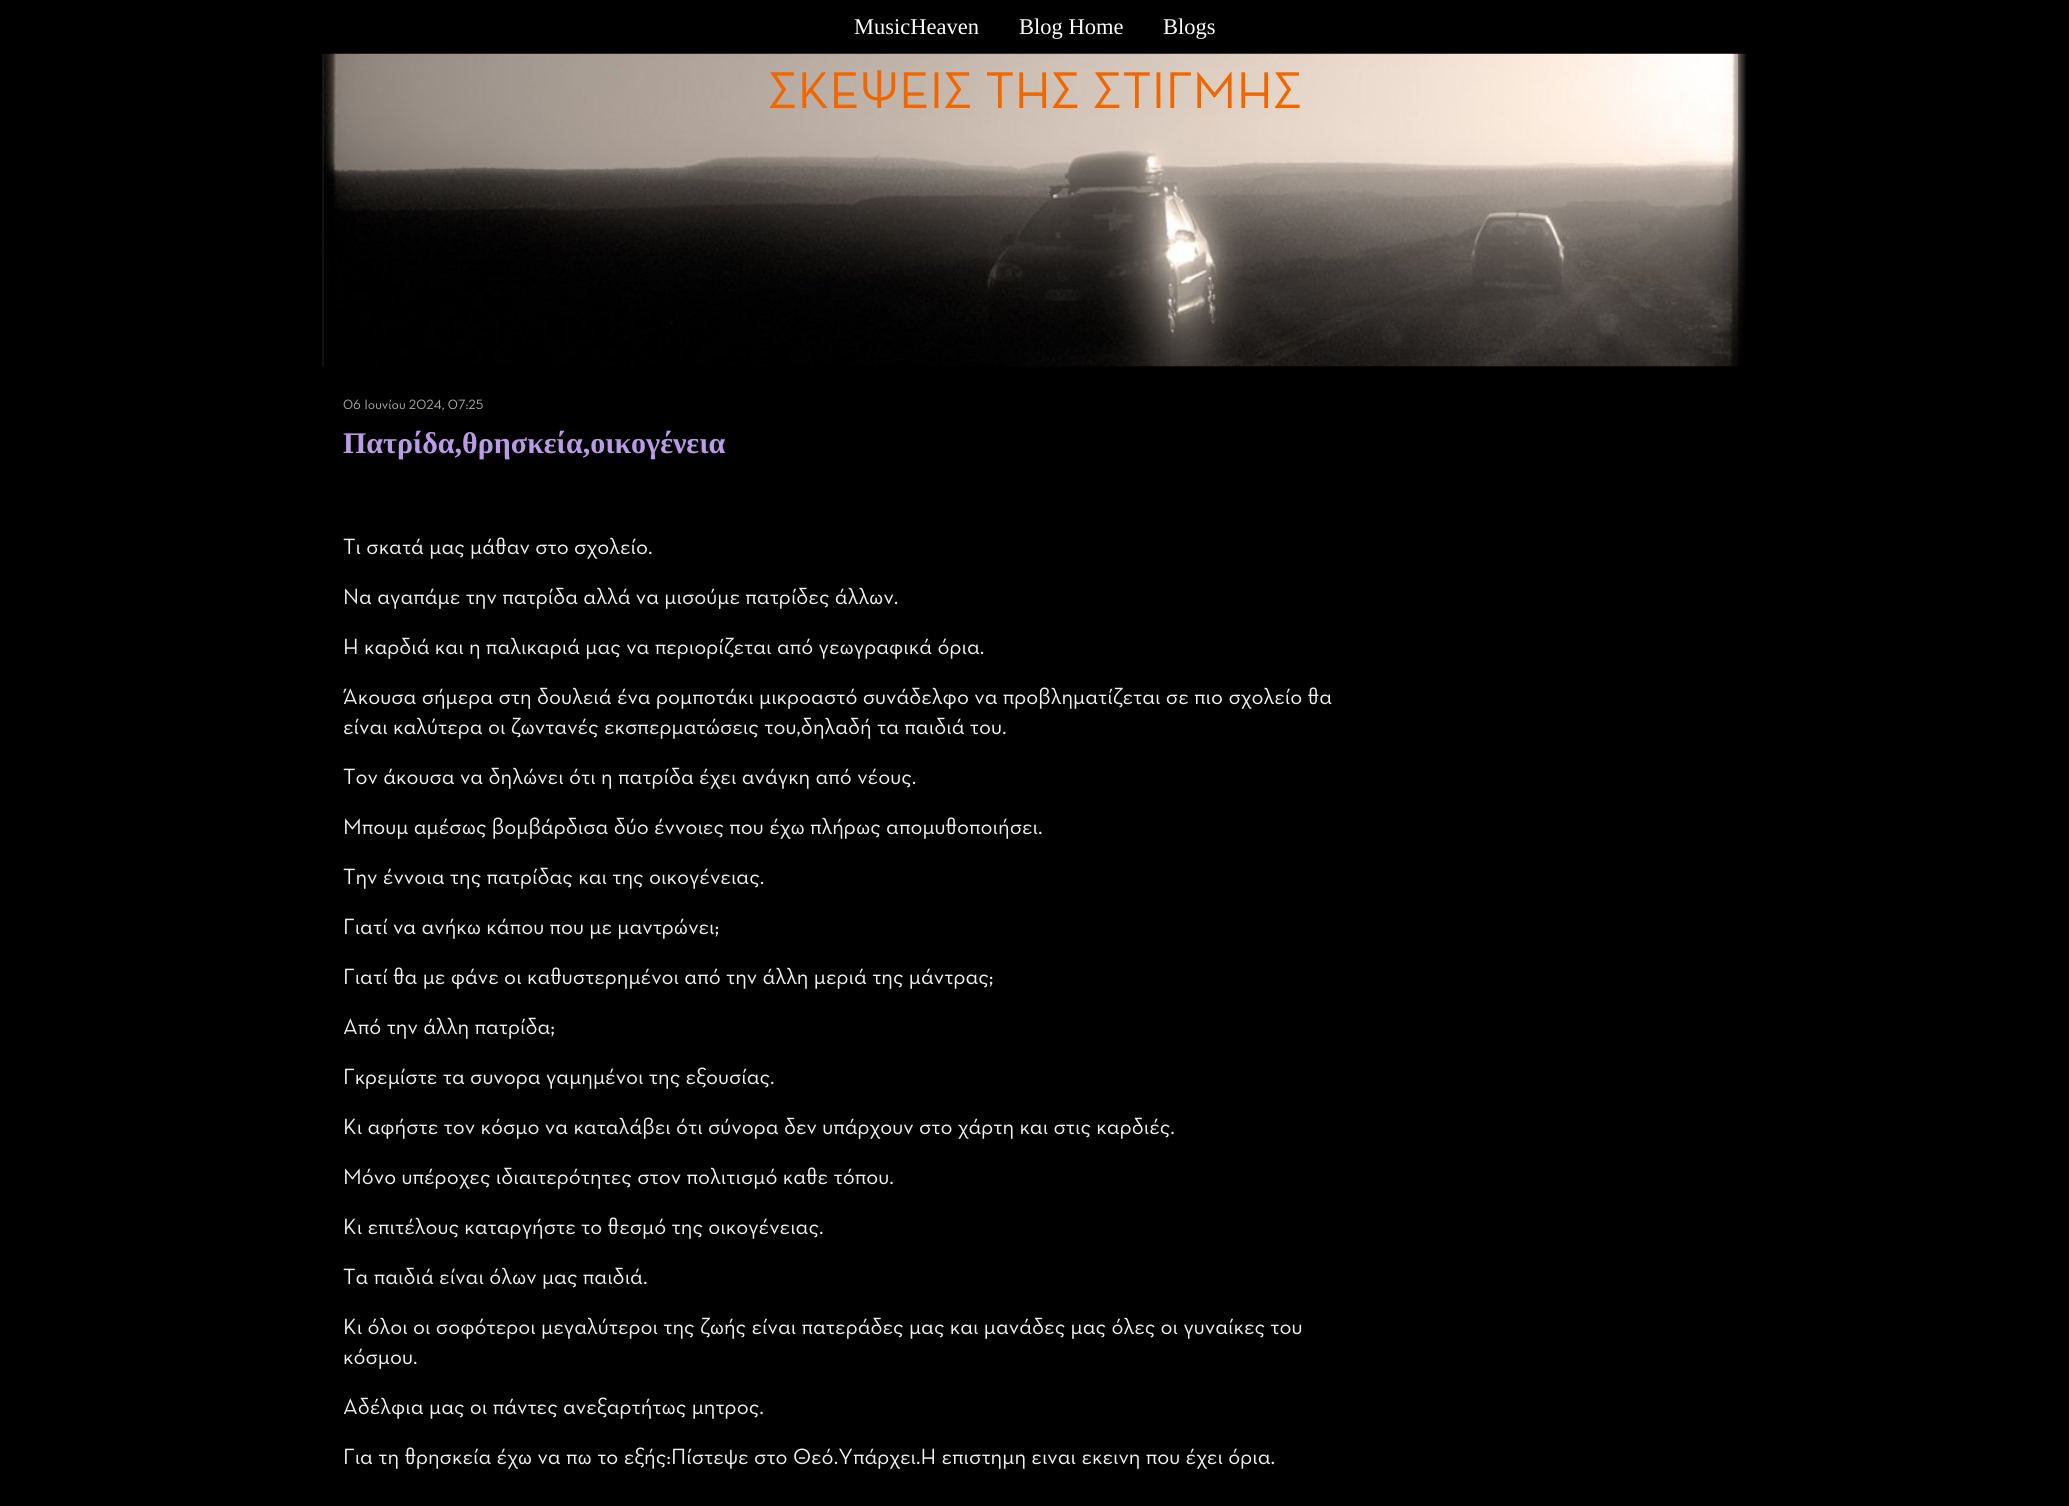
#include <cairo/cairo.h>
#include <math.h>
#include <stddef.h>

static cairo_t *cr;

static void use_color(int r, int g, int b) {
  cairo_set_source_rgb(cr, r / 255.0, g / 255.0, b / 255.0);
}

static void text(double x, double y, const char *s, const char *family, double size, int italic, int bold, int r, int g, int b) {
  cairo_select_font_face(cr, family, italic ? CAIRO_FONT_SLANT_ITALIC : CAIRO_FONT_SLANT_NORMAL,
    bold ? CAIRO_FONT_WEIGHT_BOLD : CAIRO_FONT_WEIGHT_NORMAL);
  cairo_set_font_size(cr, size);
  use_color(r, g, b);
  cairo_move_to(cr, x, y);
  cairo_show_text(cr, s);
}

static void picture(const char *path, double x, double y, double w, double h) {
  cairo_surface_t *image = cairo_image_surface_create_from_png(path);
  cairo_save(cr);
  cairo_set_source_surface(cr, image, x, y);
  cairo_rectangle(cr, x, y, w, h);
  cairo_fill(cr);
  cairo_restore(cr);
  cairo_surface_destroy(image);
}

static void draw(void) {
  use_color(0, 0, 0);
  cairo_paint(cr);
  picture("img_01.png", 322, 53, 1425, 314);
  text(854, 34, "MusicHeaven", "Liberation Serif", 22.5, 0, 0, 255, 255, 255);
  text(1019, 34, "Blog Home", "Liberation Serif", 22.5, 0, 0, 255, 255, 255);
  text(1163, 34, "Blogs", "Liberation Serif", 22.5, 0, 0, 255, 255, 255);
  text(768, 108, "ΣΚΕΨΕΙΣ ΤΗΣ ΣΤΙΓΜΗΣ", "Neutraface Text", 52.5, 0, 0, 240, 102, 0);
  text(343, 409, "06 Ιουνίου 2024, 07:25", "Neutraface Text", 13.75, 0, 0, 170, 170, 170);
  text(343, 453, "Πατρίδα,θρησκεία,οικογένεια", "Liberation Serif", 30, 0, 1, 187, 154, 232);
  text(343, 554, "Τι σκατά μας μάθαν στο σχολείο.", "Neutraface Text", 22.5, 0, 0, 241, 241, 241);
  text(343, 604, "Να αγαπάμε την πατρίδα αλλά να μισούμε πατρίδες άλλων.", "Neutraface Text", 22.5, 0, 0, 241, 241, 241);
  text(343, 654, "Η καρδιά και η παλικαριά μας να περιορίζεται από γεωγραφικά όρια.", "Neutraface Text", 22.5, 0, 0, 241, 241, 241);
  text(343, 704, "Άκουσα σήμερα στη δουλειά ένα ρομποτάκι μικροαστό συνάδελφο να προβληματίζεται σε πιο σχολείο θα", "Neutraface Text", 22.5, 0, 0, 241, 241, 241);
  text(343, 734, "είναι καλύτερα οι ζωντανές εκσπερματώσεις του,δηλαδή τα παιδιά του.", "Neutraface Text", 22.5, 0, 0, 241, 241, 241);
  text(343, 784, "Τον άκουσα να δηλώνει ότι η πατρίδα έχει ανάγκη από νέους.", "Neutraface Text", 22.5, 0, 0, 241, 241, 241);
  text(343, 834, "Μπουμ αμέσως βομβάρδισα δύο έννοιες που έχω πλήρως απομυθοποιήσει.", "Neutraface Text", 22.5, 0, 0, 241, 241, 241);
  text(343, 884, "Την έννοια της πατρίδας και της οικογένειας.", "Neutraface Text", 22.5, 0, 0, 241, 241, 241);
  text(343, 934, "Γιατί να ανήκω κάπου που με μαντρώνει;", "Neutraface Text", 22.5, 0, 0, 241, 241, 241);
  text(343, 984, "Γιατί θα με φάνε οι καθυστερημένοι από την άλλη μεριά της μάντρας;", "Neutraface Text", 22.5, 0, 0, 241, 241, 241);
  text(343, 1034, "Από την άλλη πατρίδα;", "Neutraface Text", 22.5, 0, 0, 241, 241, 241);
  text(343, 1084, "Γκρεμίστε τα συνορα γαμημένοι της εξουσίας.", "Neutraface Text", 22.5, 0, 0, 241, 241, 241);
  text(343, 1134, "Κι αφήστε τον κόσμο να καταλάβει ότι σύνορα δεν υπάρχουν στο χάρτη και στις καρδιές.", "Neutraface Text", 22.5, 0, 0, 241, 241, 241);
  text(343, 1184, "Μόνο υπέροχες ιδιαιτερότητες στον πολιτισμό καθε τόπου.", "Neutraface Text", 22.5, 0, 0, 241, 241, 241);
  text(343, 1234, "Κι επιτέλους καταργήστε το θεσμό της οικογένειας.", "Neutraface Text", 22.5, 0, 0, 241, 241, 241);
  text(343, 1284, "Τα παιδιά είναι όλων μας παιδιά.", "Neutraface Text", 22.5, 0, 0, 241, 241, 241);
  text(343, 1334, "Κι όλοι οι σοφότεροι μεγαλύτεροι της ζωής είναι πατεράδες μας και μανάδες μας όλες οι γυναίκες του", "Neutraface Text", 22.5, 0, 0, 241, 241, 241);
  text(343, 1364, "κόσμου.", "Neutraface Text", 22.5, 0, 0, 241, 241, 241);
  text(343, 1414, "Αδέλφια μας οι πάντες ανεξαρτήτως μητρος.", "Neutraface Text", 22.5, 0, 0, 241, 241, 241);
  text(343, 1464, "Για τη θρησκεία έχω να πω το εξής:Πίστεψε στο Θεό.Υπάρχει.Η επιστημη ειναι εκεινη που έχει όρια.", "Neutraface Text", 22.5, 0, 0, 241, 241, 241);
}

int main(void) {
  cairo_surface_t *surface = cairo_image_surface_create(CAIRO_FORMAT_RGB24, 2069, 1506);
  cr = cairo_create(surface);
  cairo_font_options_t *options = cairo_font_options_create();
  cairo_font_options_set_hint_metrics(options, CAIRO_HINT_METRICS_OFF);
  cairo_font_options_set_hint_style(options, CAIRO_HINT_STYLE_NONE);
  cairo_set_font_options(cr, options);
  cairo_set_miter_limit(cr, 4);
  draw();
  cairo_surface_write_to_png(surface, "out.png");
  cairo_font_options_destroy(options);
  cairo_destroy(cr);
  cairo_surface_destroy(surface);
  return 0;
}
